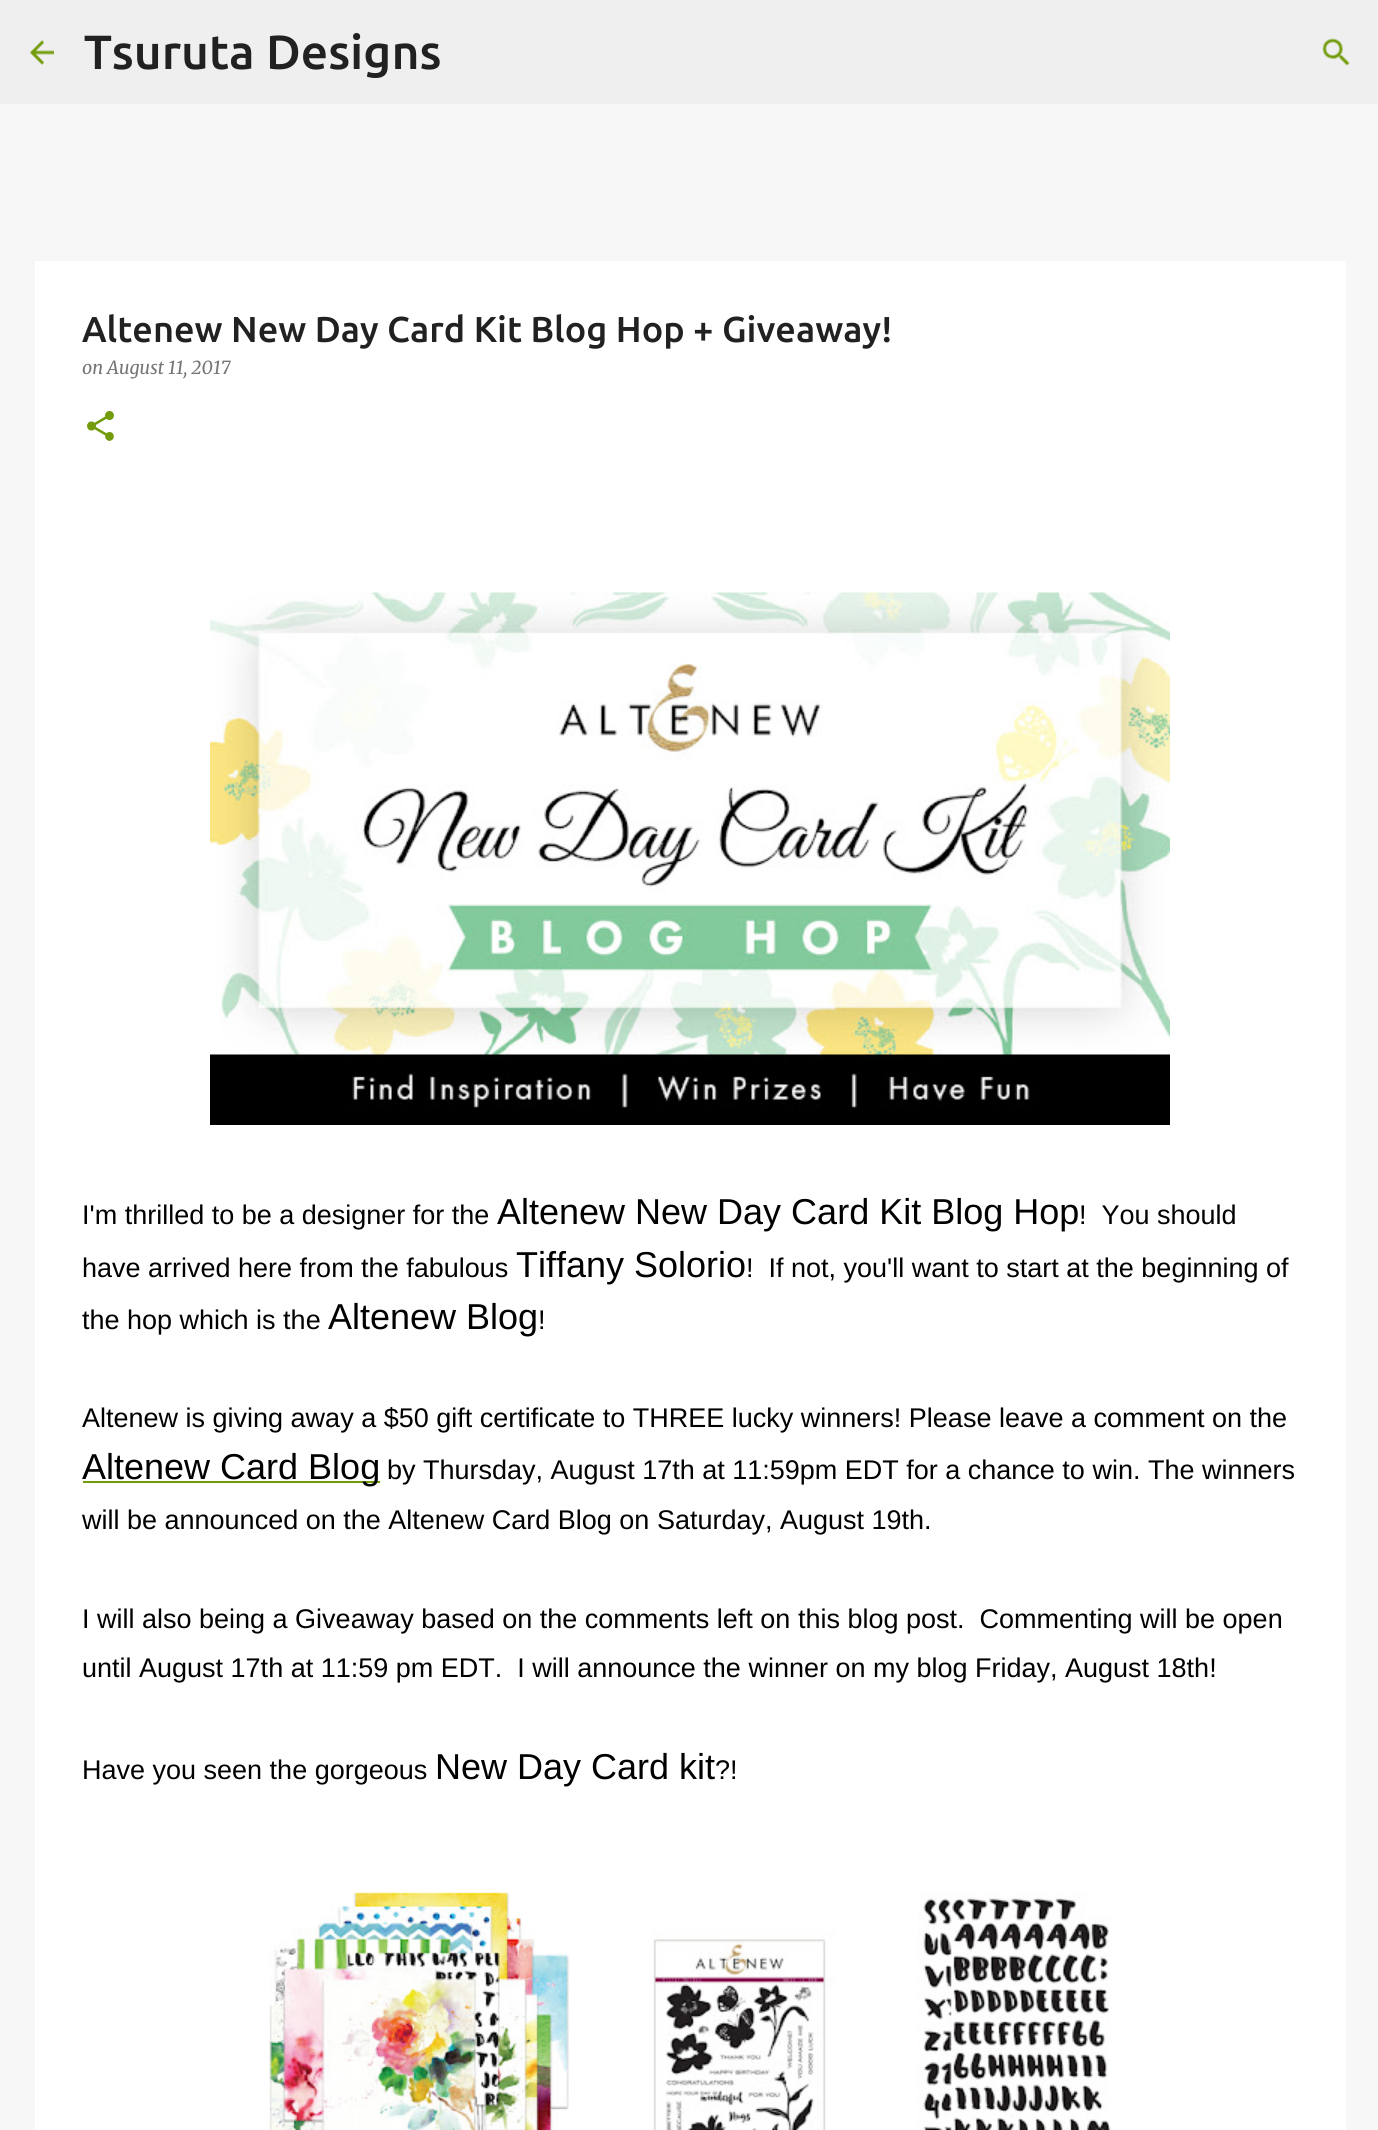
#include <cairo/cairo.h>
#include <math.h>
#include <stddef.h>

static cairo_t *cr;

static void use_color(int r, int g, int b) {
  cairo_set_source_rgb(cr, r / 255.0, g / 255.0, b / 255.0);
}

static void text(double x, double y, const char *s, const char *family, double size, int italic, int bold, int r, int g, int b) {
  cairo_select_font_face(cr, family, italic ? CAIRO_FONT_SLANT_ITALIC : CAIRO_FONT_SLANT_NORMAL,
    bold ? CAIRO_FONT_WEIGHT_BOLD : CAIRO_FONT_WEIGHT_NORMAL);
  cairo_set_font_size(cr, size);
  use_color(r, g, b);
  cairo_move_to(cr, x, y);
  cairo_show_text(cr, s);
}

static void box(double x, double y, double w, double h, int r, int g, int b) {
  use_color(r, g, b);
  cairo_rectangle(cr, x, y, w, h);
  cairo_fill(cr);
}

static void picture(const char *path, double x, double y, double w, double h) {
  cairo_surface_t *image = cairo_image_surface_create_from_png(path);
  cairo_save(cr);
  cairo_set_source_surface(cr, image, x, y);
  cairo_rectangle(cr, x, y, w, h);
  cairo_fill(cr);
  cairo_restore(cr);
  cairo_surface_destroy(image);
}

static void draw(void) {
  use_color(247, 247, 247);
  cairo_paint(cr);
  box(0, 0, 1378, 104, 239, 239, 239);
  picture("img_01.png", 30, 40, 24, 25);
  picture("img_02.png", 1322, 38, 28, 28);
  box(35, 261, 1311, 1869, 255, 255, 255);
  picture("img_03.png", 87, 411, 27, 30);
  picture("img_04.png", 210, 592, 960, 533);
  box(83, 1481, 297, 2, 114, 156, 11);
  picture("img_05.png", 269, 1892, 842, 238);
  text(84, 69, "Tsuruta Designs", "Ubuntu Medium", 48, 0, 0, 33, 33, 33);
  text(82, 342, "Altenew New Day Card Kit Blog Hop + Giveaway!", "Ubuntu Medium", 36, 0, 0, 33, 33, 33);
  text(82, 374, "on August 11, 2017", "Merriweather Light", 18, 1, 0, 117, 117, 117);
  text(82, 1224, "I'm thrilled to be a designer for the", "Liberation Sans", 27, 0, 0, 0, 0, 0);
  text(497, 1224, "Altenew New Day Card Kit Blog Hop", "Liberation Sans", 36, 0, 0, 0, 0, 0);
  text(1079, 1224, "!  You should", "Liberation Sans", 27, 0, 0, 0, 0, 0);
  text(82, 1277, "have arrived here from the fabulous", "Liberation Sans", 27, 0, 0, 0, 0, 0);
  text(516, 1277, "Tiffany Solorio", "Liberation Sans", 36, 0, 0, 0, 0, 0);
  text(746, 1277, "!  If not, you'll want to start at the beginning of", "Liberation Sans", 27, 0, 0, 0, 0, 0);
  text(82, 1329, "the hop which is the", "Liberation Sans", 27, 0, 0, 0, 0, 0);
  text(328, 1329, "Altenew Blog", "Liberation Sans", 36, 0, 0, 0, 0, 0);
  text(538, 1329, "!", "Liberation Sans", 27, 0, 0, 0, 0, 0);
  text(82, 1427, "Altenew is giving away a $50 gift certificate to THREE lucky winners! Please leave a comment on the", "Liberation Sans", 27, 0, 0, 0, 0, 0);
  text(82, 1479, "Altenew Card Blog", "Liberation Sans", 36, 0, 0, 0, 0, 0);
  text(387, 1479, "by Thursday, August 17th at 11:59pm EDT for a chance to win. The winners", "Liberation Sans", 27, 0, 0, 0, 0, 0);
  text(82, 1529, "will be announced on the Altenew Card Blog on Saturday, August 19th.", "Liberation Sans", 27, 0, 0, 0, 0, 0);
  text(82, 1628, "I will also being a Giveaway based on the comments left on this blog post.  Commenting will be open", "Liberation Sans", 27, 0, 0, 0, 0, 0);
  text(82, 1677, "until August 17th at 11:59 pm EDT.  I will announce the winner on my blog Friday, August 18th!", "Liberation Sans", 27, 0, 0, 0, 0, 0);
  text(82, 1779, "Have you seen the gorgeous", "Liberation Sans", 27, 0, 0, 0, 0, 0);
  text(435, 1779, "New Day Card kit", "Liberation Sans", 36, 0, 0, 0, 0, 0);
  text(715, 1779, "?!", "Liberation Sans", 27, 0, 0, 0, 0, 0);
}

int main(void) {
  cairo_surface_t *surface = cairo_image_surface_create(CAIRO_FORMAT_RGB24, 1378, 2130);
  cr = cairo_create(surface);
  cairo_font_options_t *options = cairo_font_options_create();
  cairo_font_options_set_hint_metrics(options, CAIRO_HINT_METRICS_OFF);
  cairo_font_options_set_hint_style(options, CAIRO_HINT_STYLE_NONE);
  cairo_set_font_options(cr, options);
  cairo_set_miter_limit(cr, 4);
  draw();
  cairo_surface_write_to_png(surface, "out.png");
  cairo_font_options_destroy(options);
  cairo_destroy(cr);
  cairo_surface_destroy(surface);
  return 0;
}
